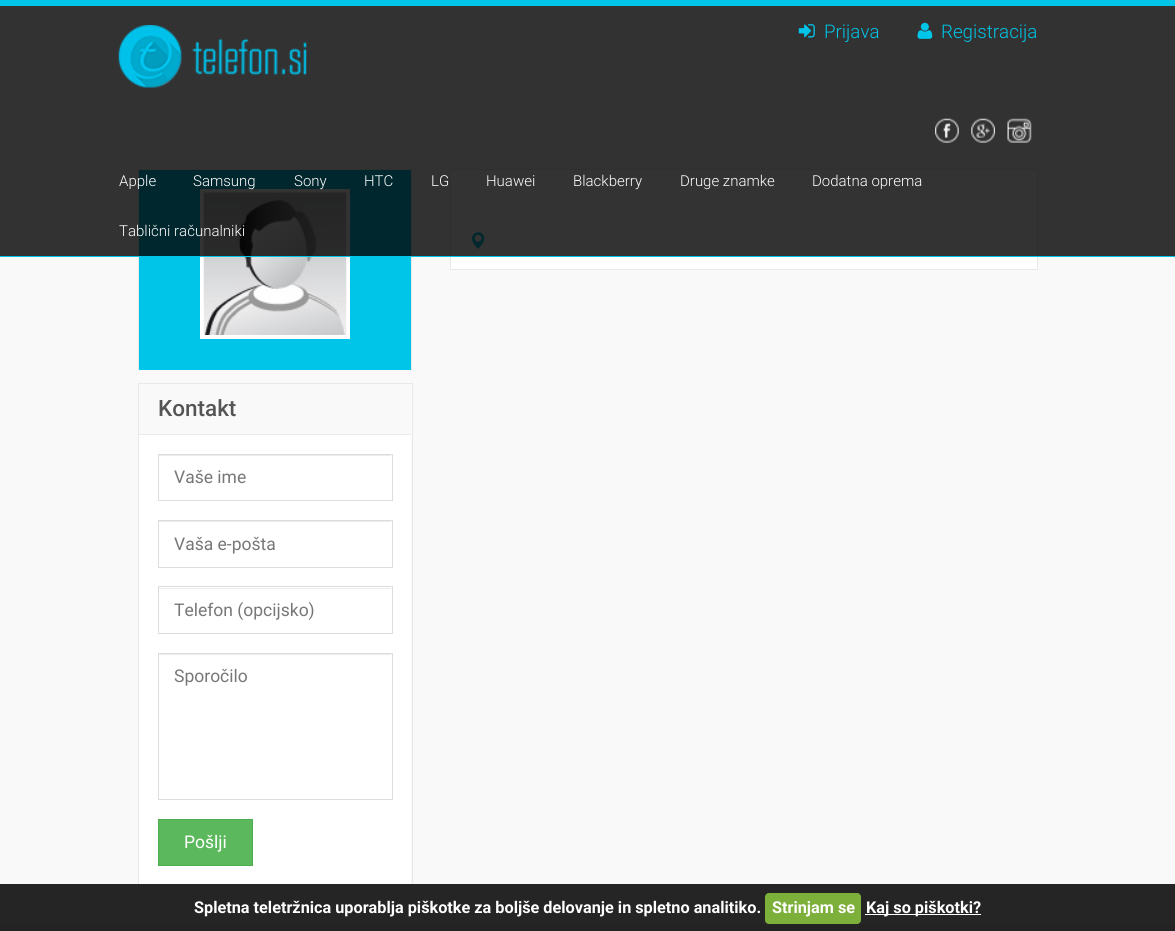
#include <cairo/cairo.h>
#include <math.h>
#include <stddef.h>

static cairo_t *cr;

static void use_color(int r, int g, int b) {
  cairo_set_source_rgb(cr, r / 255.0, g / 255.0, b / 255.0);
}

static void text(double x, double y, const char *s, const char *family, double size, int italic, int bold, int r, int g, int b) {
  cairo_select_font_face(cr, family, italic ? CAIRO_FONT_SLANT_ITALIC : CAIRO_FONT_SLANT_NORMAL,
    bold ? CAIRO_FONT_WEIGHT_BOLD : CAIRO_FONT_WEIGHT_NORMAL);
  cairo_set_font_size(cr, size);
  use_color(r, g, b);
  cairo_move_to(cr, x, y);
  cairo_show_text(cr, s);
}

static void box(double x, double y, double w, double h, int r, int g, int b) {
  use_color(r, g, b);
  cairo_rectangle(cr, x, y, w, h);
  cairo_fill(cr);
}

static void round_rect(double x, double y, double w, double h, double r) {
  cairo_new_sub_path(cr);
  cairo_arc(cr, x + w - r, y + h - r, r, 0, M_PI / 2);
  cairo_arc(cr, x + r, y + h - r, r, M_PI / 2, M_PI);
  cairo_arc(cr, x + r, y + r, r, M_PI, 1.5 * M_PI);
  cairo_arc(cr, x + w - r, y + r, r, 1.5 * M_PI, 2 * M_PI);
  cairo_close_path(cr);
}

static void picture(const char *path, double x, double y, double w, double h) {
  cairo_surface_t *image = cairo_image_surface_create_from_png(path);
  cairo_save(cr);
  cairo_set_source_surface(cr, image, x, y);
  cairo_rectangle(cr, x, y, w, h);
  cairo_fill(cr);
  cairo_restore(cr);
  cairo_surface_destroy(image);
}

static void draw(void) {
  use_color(249, 249, 249);
  cairo_paint(cr);
  use_color(255, 255, 255);
  cairo_rectangle(cr, 450.5, 169.5, 587, 100);
  cairo_fill_preserve(cr);
  use_color(233, 233, 233);
  cairo_set_line_width(cr, 1);
  cairo_stroke(cr);
  picture("img_07.png", 472, 232, 13, 17);
  box(138, 169, 275, 1, 233, 233, 233);
  box(411, 169, 1, 201, 233, 233, 233);
  box(138, 169, 1, 201, 233, 233, 233);
  box(139, 170, 272, 200, 0, 196, 232);
  cairo_rectangle(cr, 202, 191, 146, 146);
  use_color(255, 255, 255);
  cairo_set_line_width(cr, 4);
  cairo_stroke(cr);
  picture("img_08.png", 203, 192, 144, 143);
  cairo_set_source_rgba(cr, 0, 0, 0, 0.8);
  cairo_rectangle(cr, 0, 6, 1175, 250);
  cairo_fill(cr);
  box(0, 0, 1175, 6, 0, 196, 232);
  box(0, 256, 1175, 1, 0, 196, 232);
  picture("img_01.png", 118, 25, 189, 63);
  picture("img_02.png", 798, 24, 17, 14);
  picture("img_03.png", 917, 22, 16, 17);
  picture("img_04.png", 935, 118, 24, 25);
  picture("img_05.png", 971, 118, 24, 25);
  picture("img_06.png", 1007, 118, 25, 25);
  cairo_rectangle(cr, 138.5, 383.5, 274, 502);
  use_color(233, 233, 233);
  cairo_set_line_width(cr, 1);
  cairo_stroke(cr);
  box(139, 434, 272, 1, 233, 233, 233);
  box(139, 435, 272, 450, 255, 255, 255);
  box(159, 455, 232, 1, 236, 236, 236);
  cairo_rectangle(cr, 158.5, 454.5, 234, 46);
  use_color(221, 221, 221);
  cairo_stroke(cr);
  box(159, 521, 232, 1, 236, 236, 236);
  cairo_rectangle(cr, 158.5, 520.5, 234, 47);
  use_color(221, 221, 221);
  cairo_stroke(cr);
  box(159, 588, 232, 1, 236, 236, 236);
  cairo_rectangle(cr, 158.5, 586.5, 234, 47);
  use_color(221, 221, 221);
  cairo_stroke(cr);
  box(159, 654, 232, 1, 236, 236, 236);
  cairo_rectangle(cr, 158.5, 653.5, 234, 146);
  use_color(221, 221, 221);
  cairo_stroke(cr);
  use_color(92, 184, 92);
  cairo_rectangle(cr, 158.5, 819.5, 94, 46);
  cairo_fill_preserve(cr);
  use_color(76, 174, 76);
  cairo_stroke(cr);
  box(0, 924, 1175, 7, 238, 238, 238);
  cairo_set_source_rgba(cr, 0, 0, 0, 0.85);
  cairo_rectangle(cr, 0, 884, 1175, 47);
  cairo_fill(cr);
  use_color(125, 175, 59);
  round_rect(765, 893, 96, 31, 4);
  cairo_fill(cr);
  box(865, 914, 116, 1, 255, 255, 255);
  text(824, 38, "Prijava", "Roboto Light", 18.75, 0, 0, 0, 196, 232);
  text(941, 38, "Registracija", "Roboto Light", 18.75, 0, 0, 0, 196, 232);
  text(119, 186, "Apple", "Roboto Light", 15, 0, 0, 255, 255, 255);
  text(193, 186, "Samsung", "Roboto Light", 15, 0, 0, 255, 255, 255);
  text(294, 186, "Sony", "Roboto Light", 15, 0, 0, 255, 255, 255);
  text(364, 186, "HTC", "Roboto Light", 15, 0, 0, 255, 255, 255);
  text(431, 186, "LG", "Roboto Light", 15, 0, 0, 255, 255, 255);
  text(486, 186, "Huawei", "Roboto Light", 15, 0, 0, 255, 255, 255);
  text(573, 186, "Blackberry", "Roboto Light", 15, 0, 0, 255, 255, 255);
  text(680, 186, "Druge znamke", "Roboto Light", 15, 0, 0, 255, 255, 255);
  text(812, 186, "Dodatna oprema", "Roboto Light", 15, 0, 0, 255, 255, 255);
  text(119, 236, "Tablični računalniki", "Roboto Light", 15, 0, 0, 255, 255, 255);
  text(158, 416, "Kontakt", "Roboto Medium", 22.5, 0, 0, 85, 85, 85);
  text(174, 483, "Vaše ime", "Roboto", 17.5, 0, 0, 119, 119, 119);
  text(174, 550, "Vaša e-pošta", "Roboto", 17.5, 0, 0, 119, 119, 119);
  text(174, 616, "Telefon (opcijsko)", "Roboto", 17.5, 0, 0, 119, 119, 119);
  text(174, 682, "Sporočilo", "Roboto", 17.5, 0, 0, 119, 119, 119);
  text(184, 848, "Pošlji", "Roboto", 17.5, 0, 0, 255, 255, 255);
  text(194, 913, "Spletna teletržnica uporablja piškotke za boljše delovanje in spletno analitiko.", "Roboto", 16.25, 0, 1, 255, 255, 255);
  text(772, 913, "Strinjam se", "Roboto", 16.25, 0, 1, 255, 255, 255);
  text(866, 913, "Kaj so piškotki?", "Roboto", 16.25, 0, 1, 255, 255, 255);
}

int main(void) {
  cairo_surface_t *surface = cairo_image_surface_create(CAIRO_FORMAT_RGB24, 1175, 931);
  cr = cairo_create(surface);
  cairo_font_options_t *options = cairo_font_options_create();
  cairo_font_options_set_hint_metrics(options, CAIRO_HINT_METRICS_OFF);
  cairo_font_options_set_hint_style(options, CAIRO_HINT_STYLE_NONE);
  cairo_set_font_options(cr, options);
  cairo_set_miter_limit(cr, 4);
  draw();
  cairo_surface_write_to_png(surface, "out.png");
  cairo_font_options_destroy(options);
  cairo_destroy(cr);
  cairo_surface_destroy(surface);
  return 0;
}
